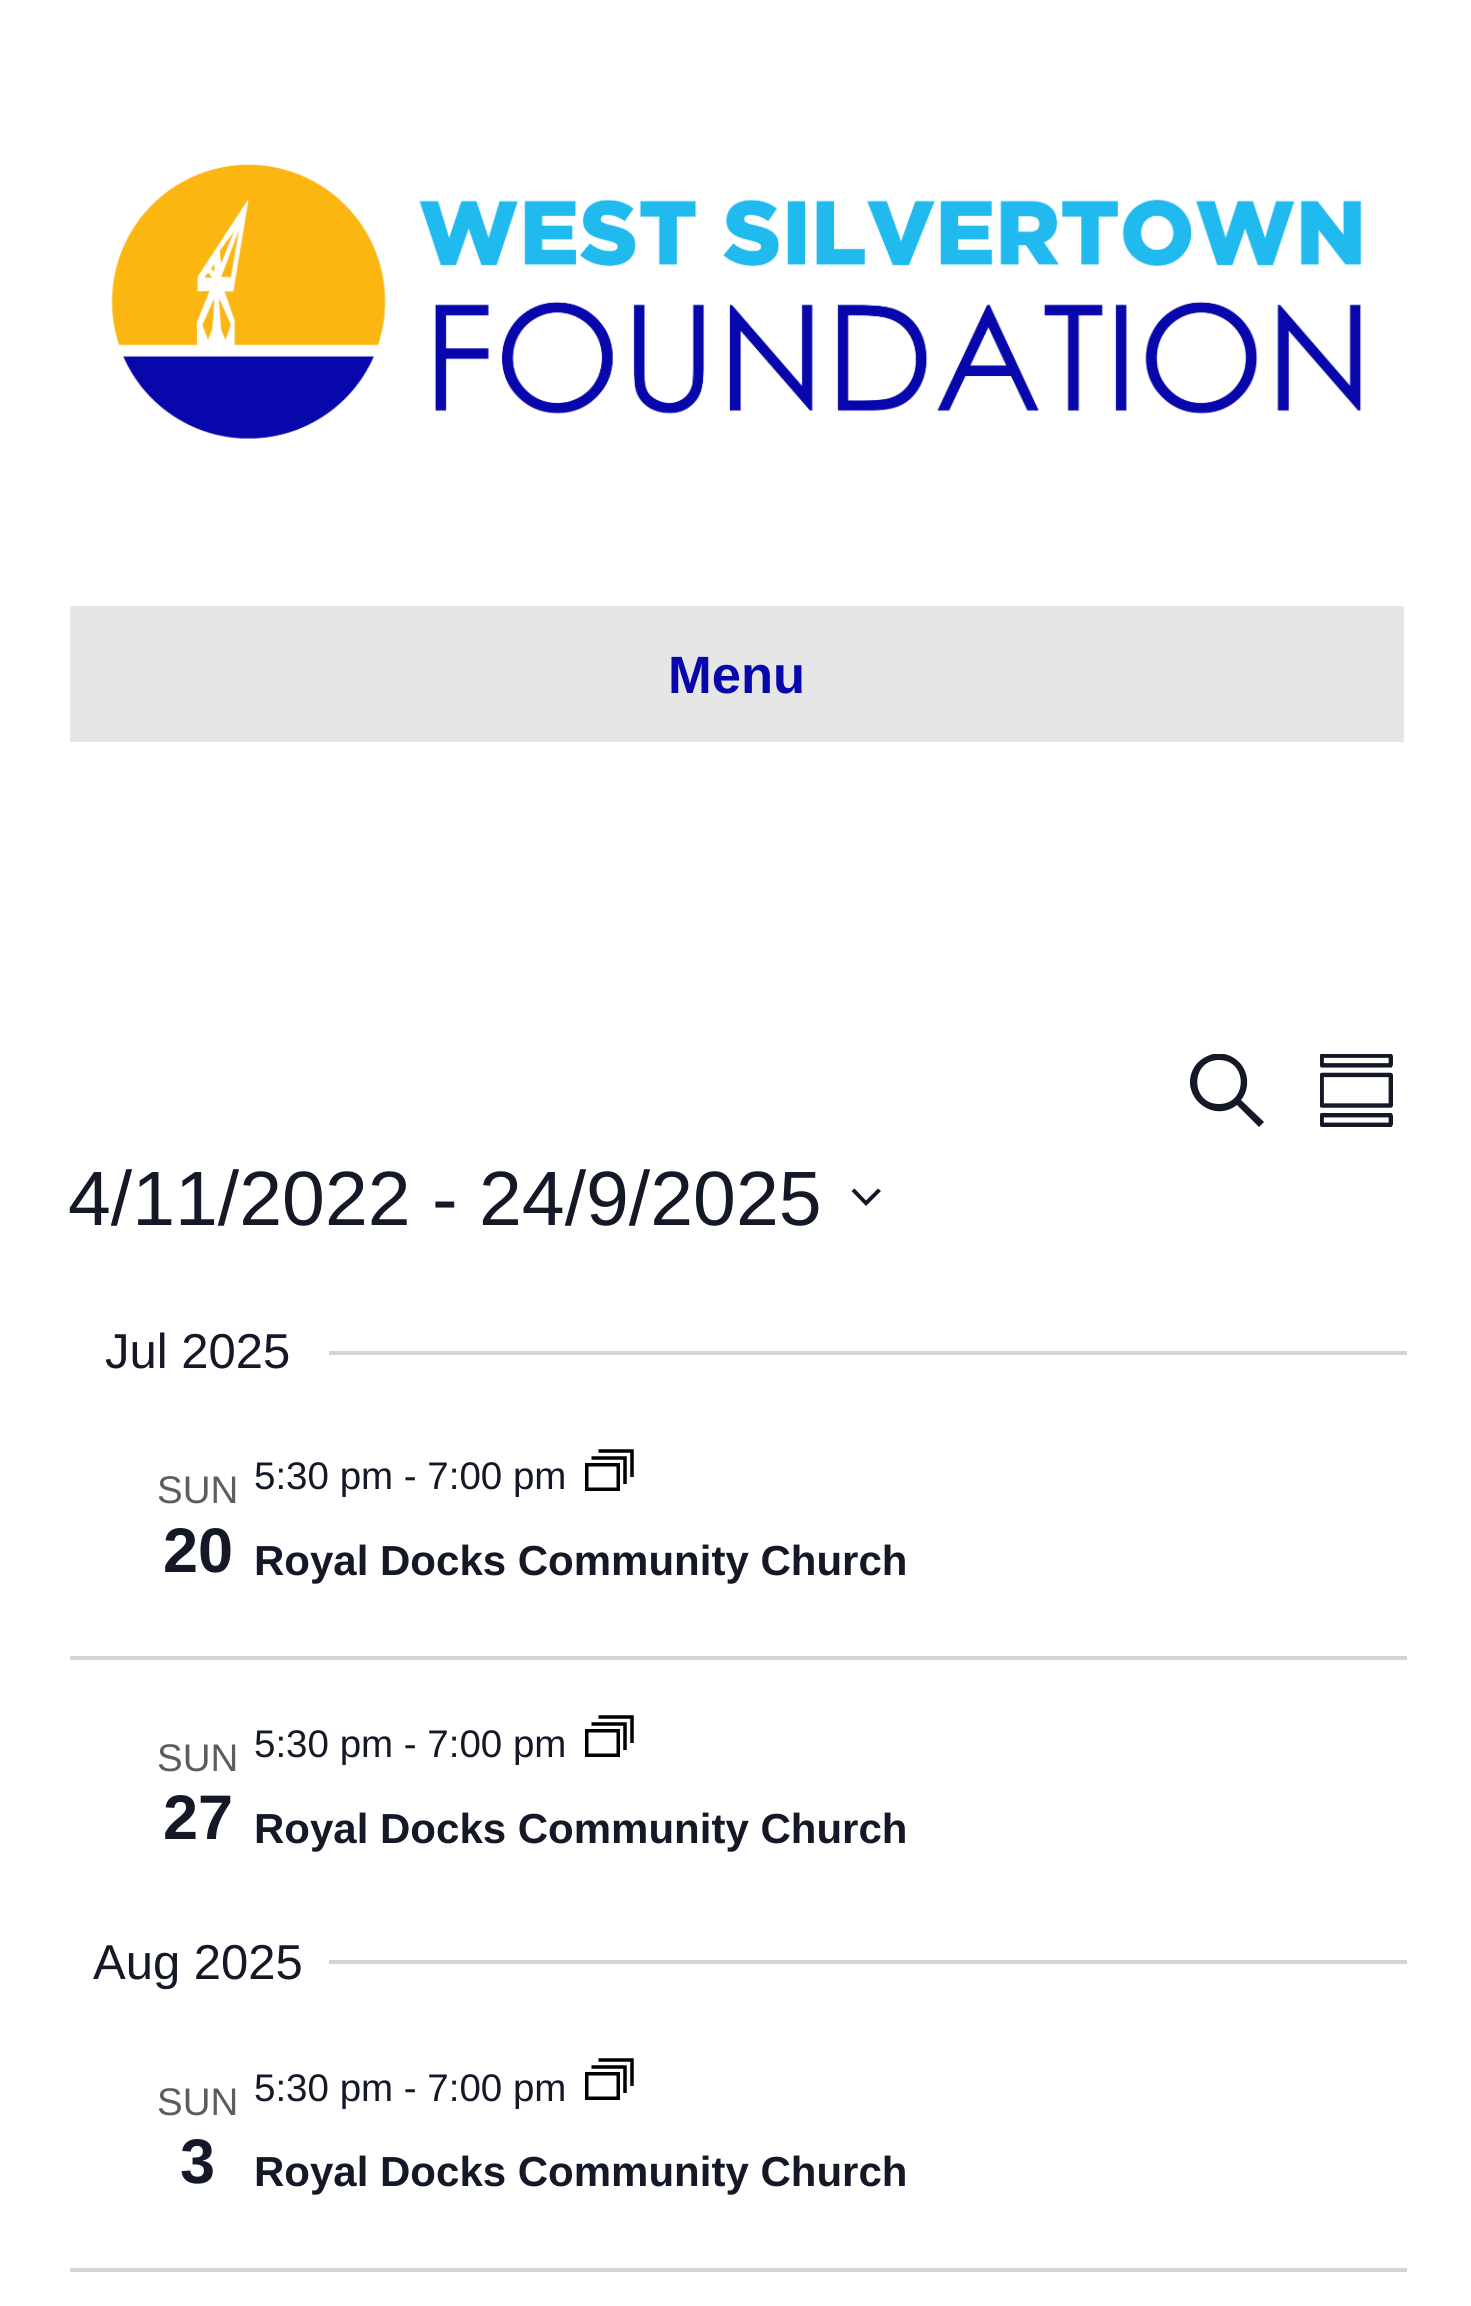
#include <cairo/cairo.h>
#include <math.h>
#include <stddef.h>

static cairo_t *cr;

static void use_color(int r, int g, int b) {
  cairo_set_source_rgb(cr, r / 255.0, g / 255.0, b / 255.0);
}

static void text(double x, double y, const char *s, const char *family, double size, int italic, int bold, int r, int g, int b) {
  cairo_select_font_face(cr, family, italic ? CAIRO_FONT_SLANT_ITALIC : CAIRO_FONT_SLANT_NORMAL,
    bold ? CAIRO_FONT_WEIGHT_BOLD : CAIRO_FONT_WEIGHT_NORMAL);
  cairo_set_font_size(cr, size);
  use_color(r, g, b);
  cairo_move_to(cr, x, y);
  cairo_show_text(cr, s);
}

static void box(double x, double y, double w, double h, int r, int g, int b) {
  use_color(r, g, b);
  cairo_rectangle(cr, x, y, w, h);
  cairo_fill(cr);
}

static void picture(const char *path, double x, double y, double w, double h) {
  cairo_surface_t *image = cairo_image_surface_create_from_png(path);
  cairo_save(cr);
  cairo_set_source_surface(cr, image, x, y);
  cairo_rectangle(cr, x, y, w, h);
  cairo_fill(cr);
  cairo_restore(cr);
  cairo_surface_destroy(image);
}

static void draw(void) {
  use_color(255, 255, 255);
  cairo_paint(cr);
  picture("img_01.png", 111, 164, 1251, 275);
  box(70, 606, 1334, 136, 230, 230, 230);
  cairo_save(cr);
  cairo_rectangle(cr, 1190, 1054, 74, 73);
  cairo_clip(cr);
  use_color(20, 24, 39);
  cairo_set_fill_rule(cr, CAIRO_FILL_RULE_EVEN_ODD);
  cairo_new_path(cr);
  cairo_move_to(cr, 1241, 1100);
  cairo_line_to(cr, 1264, 1122);
  cairo_line_to(cr, 1259, 1127);
  cairo_line_to(cr, 1237, 1105);
  cairo_curve_to(cr, 1211, 1125, 1177, 1093, 1195, 1066);
  cairo_curve_to(cr, 1199, 1060, 1206, 1056, 1213, 1054);
  cairo_curve_to(cr, 1222, 1052, 1232, 1055, 1239, 1062);
  cairo_curve_to(cr, 1249, 1072, 1250, 1089, 1241, 1100);
  cairo_close_path(cr);
  cairo_move_to(cr, 1219, 1060);
  cairo_curve_to(cr, 1190, 1060, 1190, 1104, 1219, 1104);
  cairo_curve_to(cr, 1248, 1104, 1248, 1060, 1219, 1060);
  cairo_close_path(cr);
  cairo_fill(cr);
  cairo_restore(cr);
  picture("img_02.png", 1320, 1054, 73, 73);
  use_color(20, 24, 39);
  cairo_set_fill_rule(cr, CAIRO_FILL_RULE_EVEN_ODD);
  cairo_new_path(cr);
  cairo_move_to(cr, 854.5, 1188.5);
  cairo_line_to(cr, 866, 1200.5);
  cairo_line_to(cr, 878, 1188.5);
  cairo_line_to(cr, 881, 1191);
  cairo_line_to(cr, 866, 1206);
  cairo_line_to(cr, 851.5, 1191);
  cairo_close_path(cr);
  cairo_fill(cr);
  box(329, 1351, 1078, 4, 213, 213, 213);
  box(70, 1656, 1337, 4, 213, 213, 213);
  cairo_rectangle(cr, 586.75, 1464.75, 31.5, 24.5);
  use_color(0, 0, 0);
  cairo_set_line_width(cr, 3.5);
  cairo_stroke(cr);
  cairo_new_path(cr);
  cairo_move_to(cr, 591.5, 1458);
  cairo_line_to(cr, 625, 1458);
  cairo_line_to(cr, 625, 1484);
  cairo_move_to(cr, 598.5, 1451);
  cairo_line_to(cr, 632, 1451);
  cairo_line_to(cr, 632, 1477);
  cairo_stroke(cr);
  cairo_rectangle(cr, 586.75, 1730.75, 31.5, 24.5);
  cairo_stroke(cr);
  cairo_new_path(cr);
  cairo_move_to(cr, 591.5, 1724);
  cairo_line_to(cr, 625, 1724);
  cairo_line_to(cr, 625, 1750);
  cairo_move_to(cr, 598.5, 1717);
  cairo_line_to(cr, 632, 1717);
  cairo_line_to(cr, 632, 1743);
  cairo_stroke(cr);
  box(329, 1960, 1078, 4, 213, 213, 213);
  box(70, 2268, 1337, 4, 213, 213, 213);
  cairo_rectangle(cr, 586.75, 2073.75, 31.5, 24.5);
  use_color(0, 0, 0);
  cairo_stroke(cr);
  cairo_new_path(cr);
  cairo_move_to(cr, 591.5, 2067);
  cairo_line_to(cr, 625, 2067);
  cairo_line_to(cr, 625, 2093);
  cairo_move_to(cr, 598.5, 2060);
  cairo_line_to(cr, 632, 2060);
  cairo_line_to(cr, 632, 2086);
  cairo_stroke(cr);
  text(668, 693, "Menu", "Liberation Sans", 52.5, 0, 1, 7, 7, 172);
  text(68, 1225, "4/11/2022 - 24/9/2025", "Liberation Sans", 77, 0, 0, 20, 24, 39);
  text(105, 1368, "Jul 2025", "Liberation Sans", 49, 0, 0, 20, 24, 39);
  text(157, 1503, "SUN", "Liberation Sans", 38.5, 0, 0, 93, 93, 93);
  text(163, 1572, "20", "Liberation Sans", 63, 0, 1, 20, 24, 39);
  text(254, 1489, "5:30 pm - 7:00 pm", "Liberation Sans", 38.5, 0, 0, 20, 24, 39);
  text(254, 1575, "Royal Docks Community Church", "Liberation Sans", 42, 0, 1, 20, 24, 39);
  text(157, 1771, "SUN", "Liberation Sans", 38.5, 0, 0, 93, 93, 93);
  text(163, 1839, "27", "Liberation Sans", 63, 0, 1, 20, 24, 39);
  text(254, 1757, "5:30 pm - 7:00 pm", "Liberation Sans", 38.5, 0, 0, 20, 24, 39);
  text(254, 1843, "Royal Docks Community Church", "Liberation Sans", 42, 0, 1, 20, 24, 39);
  text(93, 1979, "Aug 2025", "Liberation Sans", 49, 0, 0, 20, 24, 39);
  text(157, 2115, "SUN", "Liberation Sans", 38.5, 0, 0, 93, 93, 93);
  text(180, 2183, "3", "Liberation Sans", 63, 0, 1, 20, 24, 39);
  text(254, 2101, "5:30 pm - 7:00 pm", "Liberation Sans", 38.5, 0, 0, 20, 24, 39);
  text(254, 2186, "Royal Docks Community Church", "Liberation Sans", 42, 0, 1, 20, 24, 39);
}

int main(void) {
  cairo_surface_t *surface = cairo_image_surface_create(CAIRO_FORMAT_RGB24, 1471, 2306);
  cr = cairo_create(surface);
  cairo_font_options_t *options = cairo_font_options_create();
  cairo_font_options_set_hint_metrics(options, CAIRO_HINT_METRICS_OFF);
  cairo_font_options_set_hint_style(options, CAIRO_HINT_STYLE_NONE);
  cairo_set_font_options(cr, options);
  cairo_set_miter_limit(cr, 4);
  draw();
  cairo_surface_write_to_png(surface, "out.png");
  cairo_font_options_destroy(options);
  cairo_destroy(cr);
  cairo_surface_destroy(surface);
  return 0;
}
